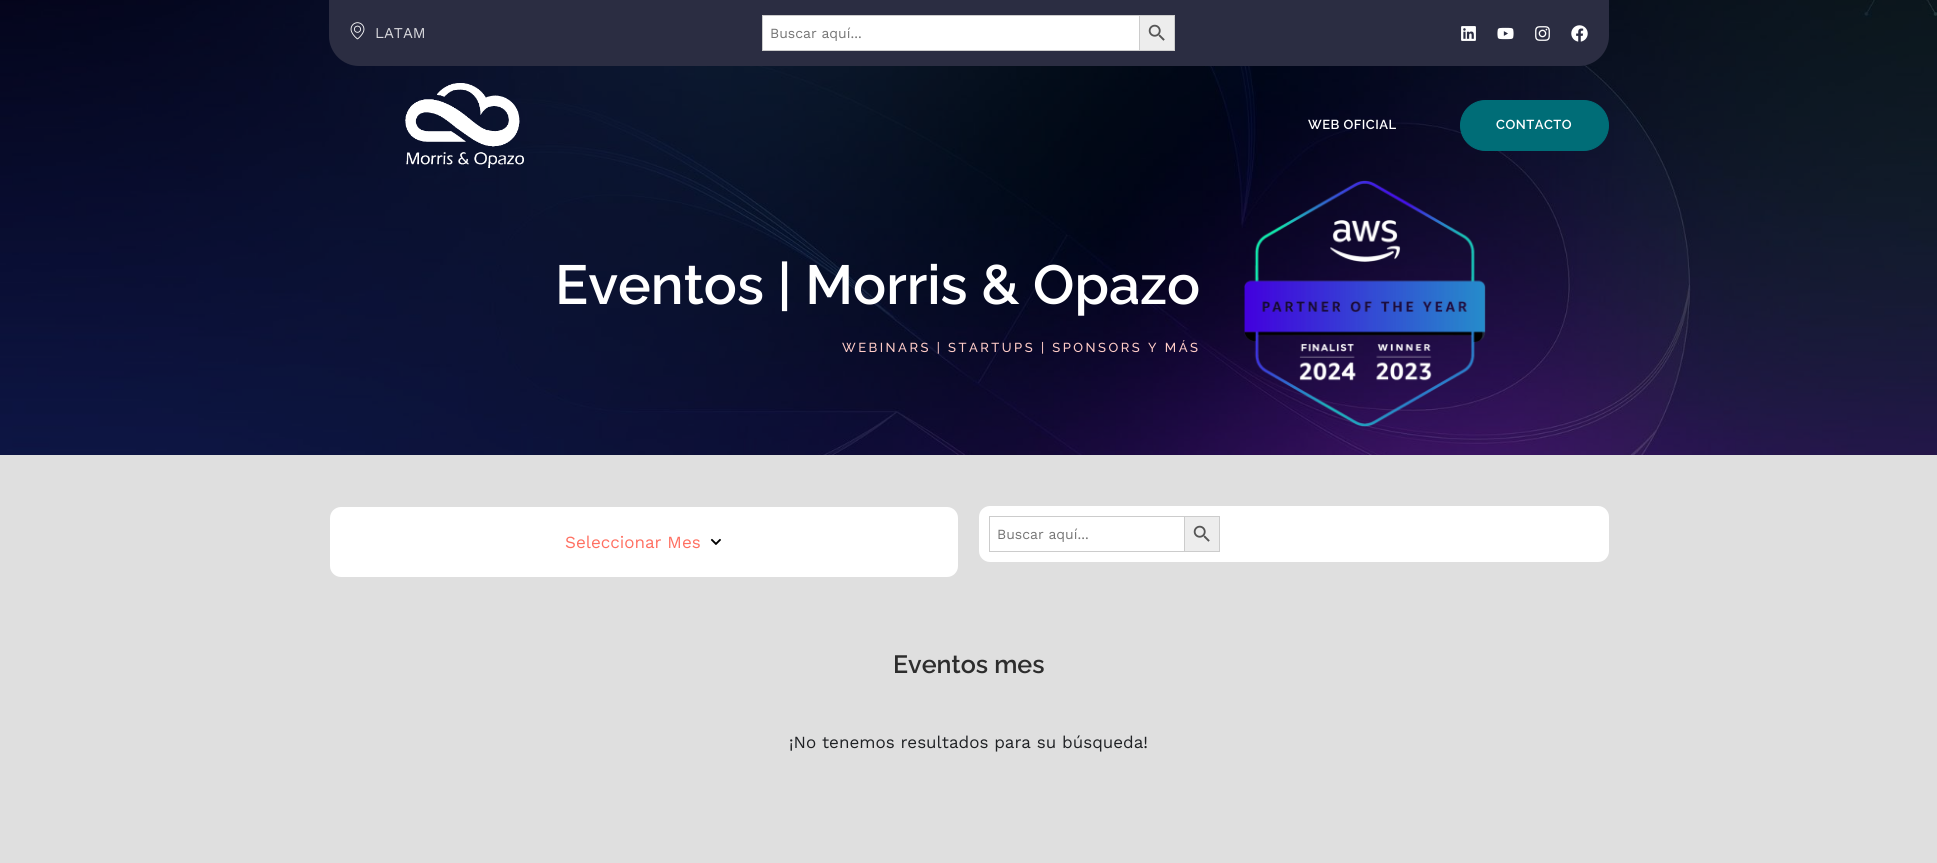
#include <cairo/cairo.h>
#include <math.h>
#include <stddef.h>

static cairo_t *cr;

static void use_color(int r, int g, int b) {
  cairo_set_source_rgb(cr, r / 255.0, g / 255.0, b / 255.0);
}

static void text(double x, double y, const char *s, const char *family, double size, int italic, int bold, int r, int g, int b) {
  cairo_select_font_face(cr, family, italic ? CAIRO_FONT_SLANT_ITALIC : CAIRO_FONT_SLANT_NORMAL,
    bold ? CAIRO_FONT_WEIGHT_BOLD : CAIRO_FONT_WEIGHT_NORMAL);
  cairo_set_font_size(cr, size);
  use_color(r, g, b);
  cairo_move_to(cr, x, y);
  cairo_show_text(cr, s);
}

static void spaced_text(double x, double y, const char *s, double letter, double word) {
  cairo_move_to(cr, x, y);
  while (*s) {
    char ch[5] = {0};
    int n = 0;
    do ch[n++] = *s++; while ((*s & 0xC0) == 0x80);
    cairo_show_text(cr, ch);
    cairo_rel_move_to(cr, letter + word * (*ch == ' '), 0);
  }
}

static void box(double x, double y, double w, double h, int r, int g, int b) {
  use_color(r, g, b);
  cairo_rectangle(cr, x, y, w, h);
  cairo_fill(cr);
}

static void round_rect(double x, double y, double w, double h, double r) {
  cairo_new_sub_path(cr);
  cairo_arc(cr, x + w - r, y + h - r, r, 0, M_PI / 2);
  cairo_arc(cr, x + r, y + h - r, r, M_PI / 2, M_PI);
  cairo_arc(cr, x + r, y + r, r, M_PI, 1.5 * M_PI);
  cairo_arc(cr, x + w - r, y + r, r, 1.5 * M_PI, 2 * M_PI);
  cairo_close_path(cr);
}

static void picture(const char *path, double x, double y, double w, double h) {
  cairo_surface_t *image = cairo_image_surface_create_from_png(path);
  cairo_save(cr);
  cairo_set_source_surface(cr, image, x, y);
  cairo_rectangle(cr, x, y, w, h);
  cairo_fill(cr);
  cairo_restore(cr);
  cairo_surface_destroy(image);
}

static void draw(void) {
  use_color(255, 255, 255);
  cairo_paint(cr);
  picture("img_01.png", 0, 0, 1937, 455);
  use_color(43, 45, 66);
  cairo_new_path(cr);
  cairo_move_to(cr, 329, 0);
  cairo_line_to(cr, 1609, 0);
  cairo_line_to(cr, 1609, 36);
  cairo_curve_to(cr, 1609, 52.5, 1595.5, 66, 1579, 66);
  cairo_line_to(cr, 359, 66);
  cairo_curve_to(cr, 342.5, 66, 329, 52.5, 329, 36);
  cairo_close_path(cr);
  cairo_fill(cr);
  picture("img_02.png", 350, 22, 15, 18);
  box(763, 16, 376, 34, 255, 255, 255);
  box(762, 15, 377, 1, 204, 204, 204);
  box(762, 50, 377, 1, 204, 204, 204);
  box(762, 15, 1, 36, 204, 204, 204);
  use_color(237, 237, 237);
  cairo_rectangle(cr, 1139.5, 15.5, 35, 35);
  cairo_fill_preserve(cr);
  use_color(204, 204, 204);
  cairo_set_line_width(cr, 1);
  cairo_stroke(cr);
  picture("img_03.png", 1148, 24, 17, 17);
  picture("img_04.png", 1461, 26, 15, 15);
  picture("img_05.png", 1497, 27, 17, 13);
  picture("img_06.png", 1535, 26, 15, 15);
  picture("img_07.png", 1571, 25, 17, 17);
  picture("img_08.png", 405, 83, 119, 85);
  use_color(0, 109, 119);
  round_rect(1460.5, 100.5, 148, 50, 25);
  cairo_fill_preserve(cr);
  cairo_stroke(cr);
  picture("img_09.png", 1244, 180, 242, 247);
  box(0, 455, 1937, 408, 223, 223, 223);
  use_color(255, 255, 255);
  round_rect(330, 507, 628, 70, 11);
  cairo_fill(cr);
  picture("img_10.png", 710, 538, 11, 7);
  round_rect(979, 506, 630, 56, 11);
  cairo_fill(cr);
  box(989, 516, 195, 1, 204, 204, 204);
  box(989, 551, 195, 1, 204, 204, 204);
  box(989, 516, 1, 36, 204, 204, 204);
  use_color(237, 237, 237);
  cairo_rectangle(cr, 1184.5, 516.5, 35, 35);
  cairo_fill_preserve(cr);
  use_color(204, 204, 204);
  cairo_stroke(cr);
  picture("img_03.png", 1193, 525, 17, 17);
  text(375, 38, "LATAM", "Work Sans", 15, 0, 0, 219, 219, 223);
  text(770, 38, "Buscar aquí...", "Work Sans", 14, 0, 0, 117, 117, 117);
  cairo_select_font_face(cr, "Raleway SemiBold", CAIRO_FONT_SLANT_NORMAL, CAIRO_FONT_WEIGHT_NORMAL);
  cairo_set_font_size(cr, 13);
  use_color(255, 255, 255);
  spaced_text(1308, 129, "WEB OFICIAL", 0.5, 0);
  spaced_text(1496, 129, "CONTACTO", 0.5, 0);
  text(555, 304, "Eventos | Morris & Opazo", "Raleway SemiBold", 55, 0, 0, 255, 255, 255);
  cairo_select_font_face(cr, "Raleway Medium", CAIRO_FONT_SLANT_NORMAL, CAIRO_FONT_WEIGHT_NORMAL);
  cairo_set_font_size(cr, 13);
  use_color(255, 204, 199);
  spaced_text(842, 352, "WEBINARS | STARTUPS | SPONSORS Y MÁS", 2.5, 0);
  text(565, 548, "Seleccionar Mes", "Work Sans", 17, 0, 0, 255, 111, 97);
  text(997, 539, "Buscar aquí...", "Work Sans", 14, 0, 0, 117, 117, 117);
  text(893, 673, "Eventos mes", "Raleway SemiBold", 25, 0, 0, 45, 45, 45);
  text(789, 748, "¡No tenemos resultados para su búsqueda!", "Work Sans", 17, 0, 0, 31, 33, 36);
}

int main(void) {
  cairo_surface_t *surface = cairo_image_surface_create(CAIRO_FORMAT_RGB24, 1937, 863);
  cr = cairo_create(surface);
  cairo_font_options_t *options = cairo_font_options_create();
  cairo_font_options_set_hint_metrics(options, CAIRO_HINT_METRICS_OFF);
  cairo_font_options_set_hint_style(options, CAIRO_HINT_STYLE_NONE);
  cairo_set_font_options(cr, options);
  cairo_set_miter_limit(cr, 4);
  draw();
  cairo_surface_write_to_png(surface, "out.png");
  cairo_font_options_destroy(options);
  cairo_destroy(cr);
  cairo_surface_destroy(surface);
  return 0;
}
